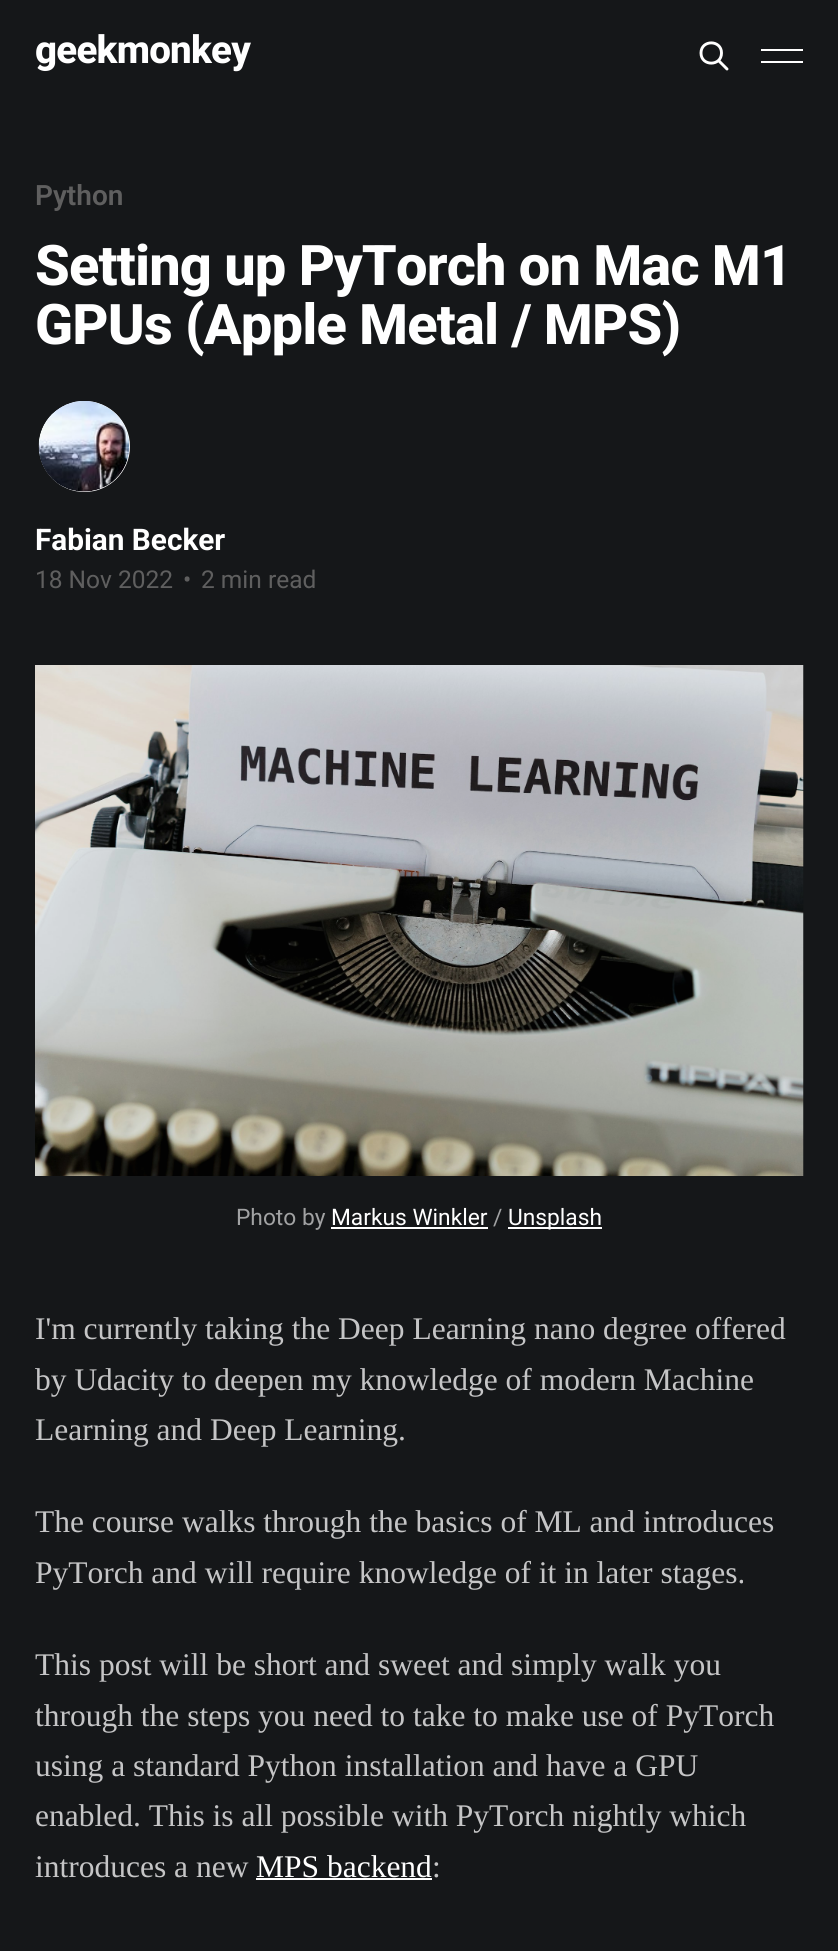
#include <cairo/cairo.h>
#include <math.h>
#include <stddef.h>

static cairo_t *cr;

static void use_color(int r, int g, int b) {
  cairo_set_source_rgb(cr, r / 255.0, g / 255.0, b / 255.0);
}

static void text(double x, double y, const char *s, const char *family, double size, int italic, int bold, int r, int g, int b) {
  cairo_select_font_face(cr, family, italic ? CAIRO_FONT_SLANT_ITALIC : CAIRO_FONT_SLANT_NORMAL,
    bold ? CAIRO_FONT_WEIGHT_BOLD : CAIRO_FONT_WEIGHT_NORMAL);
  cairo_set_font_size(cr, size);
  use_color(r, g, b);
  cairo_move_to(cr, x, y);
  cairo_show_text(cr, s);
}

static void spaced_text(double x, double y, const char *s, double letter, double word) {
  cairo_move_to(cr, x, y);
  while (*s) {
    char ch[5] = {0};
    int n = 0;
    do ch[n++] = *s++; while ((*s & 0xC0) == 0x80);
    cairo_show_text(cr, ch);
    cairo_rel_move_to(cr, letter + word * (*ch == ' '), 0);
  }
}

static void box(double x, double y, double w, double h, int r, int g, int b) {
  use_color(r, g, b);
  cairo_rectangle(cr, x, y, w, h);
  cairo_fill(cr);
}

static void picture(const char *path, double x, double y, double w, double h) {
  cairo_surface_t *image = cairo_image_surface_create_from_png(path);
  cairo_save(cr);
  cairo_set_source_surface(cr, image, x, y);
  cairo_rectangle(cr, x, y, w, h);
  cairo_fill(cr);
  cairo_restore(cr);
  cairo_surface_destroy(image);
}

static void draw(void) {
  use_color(21, 23, 25);
  cairo_paint(cr);
  cairo_new_path(cr);
  cairo_move_to(cr, 727, 69);
  cairo_line_to(cr, 718.5, 60.5);
  cairo_move_to(cr, 721.5, 53);
  cairo_curve_to(cr, 721.5, 66.5, 701, 66.5, 701, 53);
  cairo_curve_to(cr, 701, 39.5, 721.5, 39.5, 721.5, 53);
  cairo_close_path(cr);
  use_color(255, 255, 255);
  cairo_set_line_width(cr, 2.9);
  cairo_set_line_cap(cr, CAIRO_LINE_CAP_ROUND);
  cairo_set_line_join(cr, CAIRO_LINE_JOIN_ROUND);
  cairo_stroke(cr);
  box(761, 49, 42, 2, 255, 255, 255);
  box(761, 61, 42, 2, 255, 255, 255);
  cairo_arc(cr, 84.5, 446.5, 45.5, 0, 2 * M_PI);
  cairo_fill(cr);
  picture("img_01.png", 38, 401, 92, 91);
  picture("img_02.png", 35, 665, 769, 511);
  box(331, 1227, 157, 2, 255, 255, 255);
  box(508, 1227, 94, 2, 255, 255, 255);
  box(256, 1878, 176, 2, 255, 255, 255);
  cairo_select_font_face(cr, "Roboto ExtraBold", CAIRO_FONT_SLANT_NORMAL, CAIRO_FONT_WEIGHT_NORMAL);
  cairo_set_font_size(cr, 38.5);
  spaced_text(35, 63, "geekmonkey", -0.75, 0);
  text(35, 205, "Python", "Roboto SemiBold", 28, 0, 0, 95, 95, 95);
  cairo_select_font_face(cr, "Roboto ExtraBold", CAIRO_FONT_SLANT_NORMAL, CAIRO_FONT_WEIGHT_NORMAL);
  cairo_set_font_size(cr, 56);
  use_color(255, 255, 255);
  spaced_text(35, 285, "Setting up PyTorch on Mac M1", -0.85, 0);
  spaced_text(35, 344, "GPUs (Apple Metal / MPS)", -0.85, 0);
  text(35, 550, "Fabian Becker", "Roboto", 29.75, 0, 1, 255, 255, 255);
  text(35, 588, "18 Nov 2022", "Roboto", 24.5, 0, 0, 95, 95, 95);
  text(183, 588, "•", "Roboto", 24.5, 0, 0, 95, 95, 95);
  text(201, 588, "2 min read", "Roboto", 24.5, 0, 0, 95, 95, 95);
  text(236, 1225, "Photo by", "Roboto", 22.75, 0, 0, 161, 162, 163);
  text(331, 1225, "Markus Winkler", "Roboto", 22.75, 0, 0, 255, 255, 255);
  text(493, 1225, "/", "Roboto", 22.75, 0, 0, 161, 162, 163);
  text(508, 1225, "Unsplash", "Roboto", 22.75, 0, 0, 255, 255, 255);
  text(35, 1339, "I'm currently taking the Deep Learning nano degree offered", "Liberation Serif", 31.5, 0, 0, 197, 197, 198);
  text(35, 1390, "by Udacity to deepen my knowledge of modern Machine", "Liberation Serif", 31.5, 0, 0, 197, 197, 198);
  text(35, 1440, "Learning and Deep Learning.", "Liberation Serif", 31.5, 0, 0, 197, 197, 198);
  text(35, 1532, "The course walks through the basics of ML and introduces", "Liberation Serif", 31.5, 0, 0, 197, 197, 198);
  text(35, 1583, "PyTorch and will require knowledge of it in later stages.", "Liberation Serif", 31.5, 0, 0, 197, 197, 198);
  text(35, 1675, "This post will be short and sweet and simply walk you", "Liberation Serif", 31.5, 0, 0, 197, 197, 198);
  text(35, 1726, "through the steps you need to take to make use of PyTorch", "Liberation Serif", 31.5, 0, 0, 197, 197, 198);
  text(35, 1776, "using a standard Python installation and have a GPU", "Liberation Serif", 31.5, 0, 0, 197, 197, 198);
  text(35, 1826, "enabled. This is all possible with PyTorch nightly which", "Liberation Serif", 31.5, 0, 0, 197, 197, 198);
  text(35, 1877, "introduces a new", "Liberation Serif", 31.5, 0, 0, 197, 197, 198);
  text(256, 1877, "MPS backend", "Liberation Serif", 31.5, 0, 0, 255, 255, 255);
  text(432, 1877, ":", "Liberation Serif", 31.5, 0, 0, 197, 197, 198);
}

int main(void) {
  cairo_surface_t *surface = cairo_image_surface_create(CAIRO_FORMAT_RGB24, 838, 1951);
  cr = cairo_create(surface);
  cairo_font_options_t *options = cairo_font_options_create();
  cairo_font_options_set_hint_metrics(options, CAIRO_HINT_METRICS_OFF);
  cairo_font_options_set_hint_style(options, CAIRO_HINT_STYLE_NONE);
  cairo_set_font_options(cr, options);
  cairo_set_miter_limit(cr, 4);
  draw();
  cairo_surface_write_to_png(surface, "out.png");
  cairo_font_options_destroy(options);
  cairo_destroy(cr);
  cairo_surface_destroy(surface);
  return 0;
}
